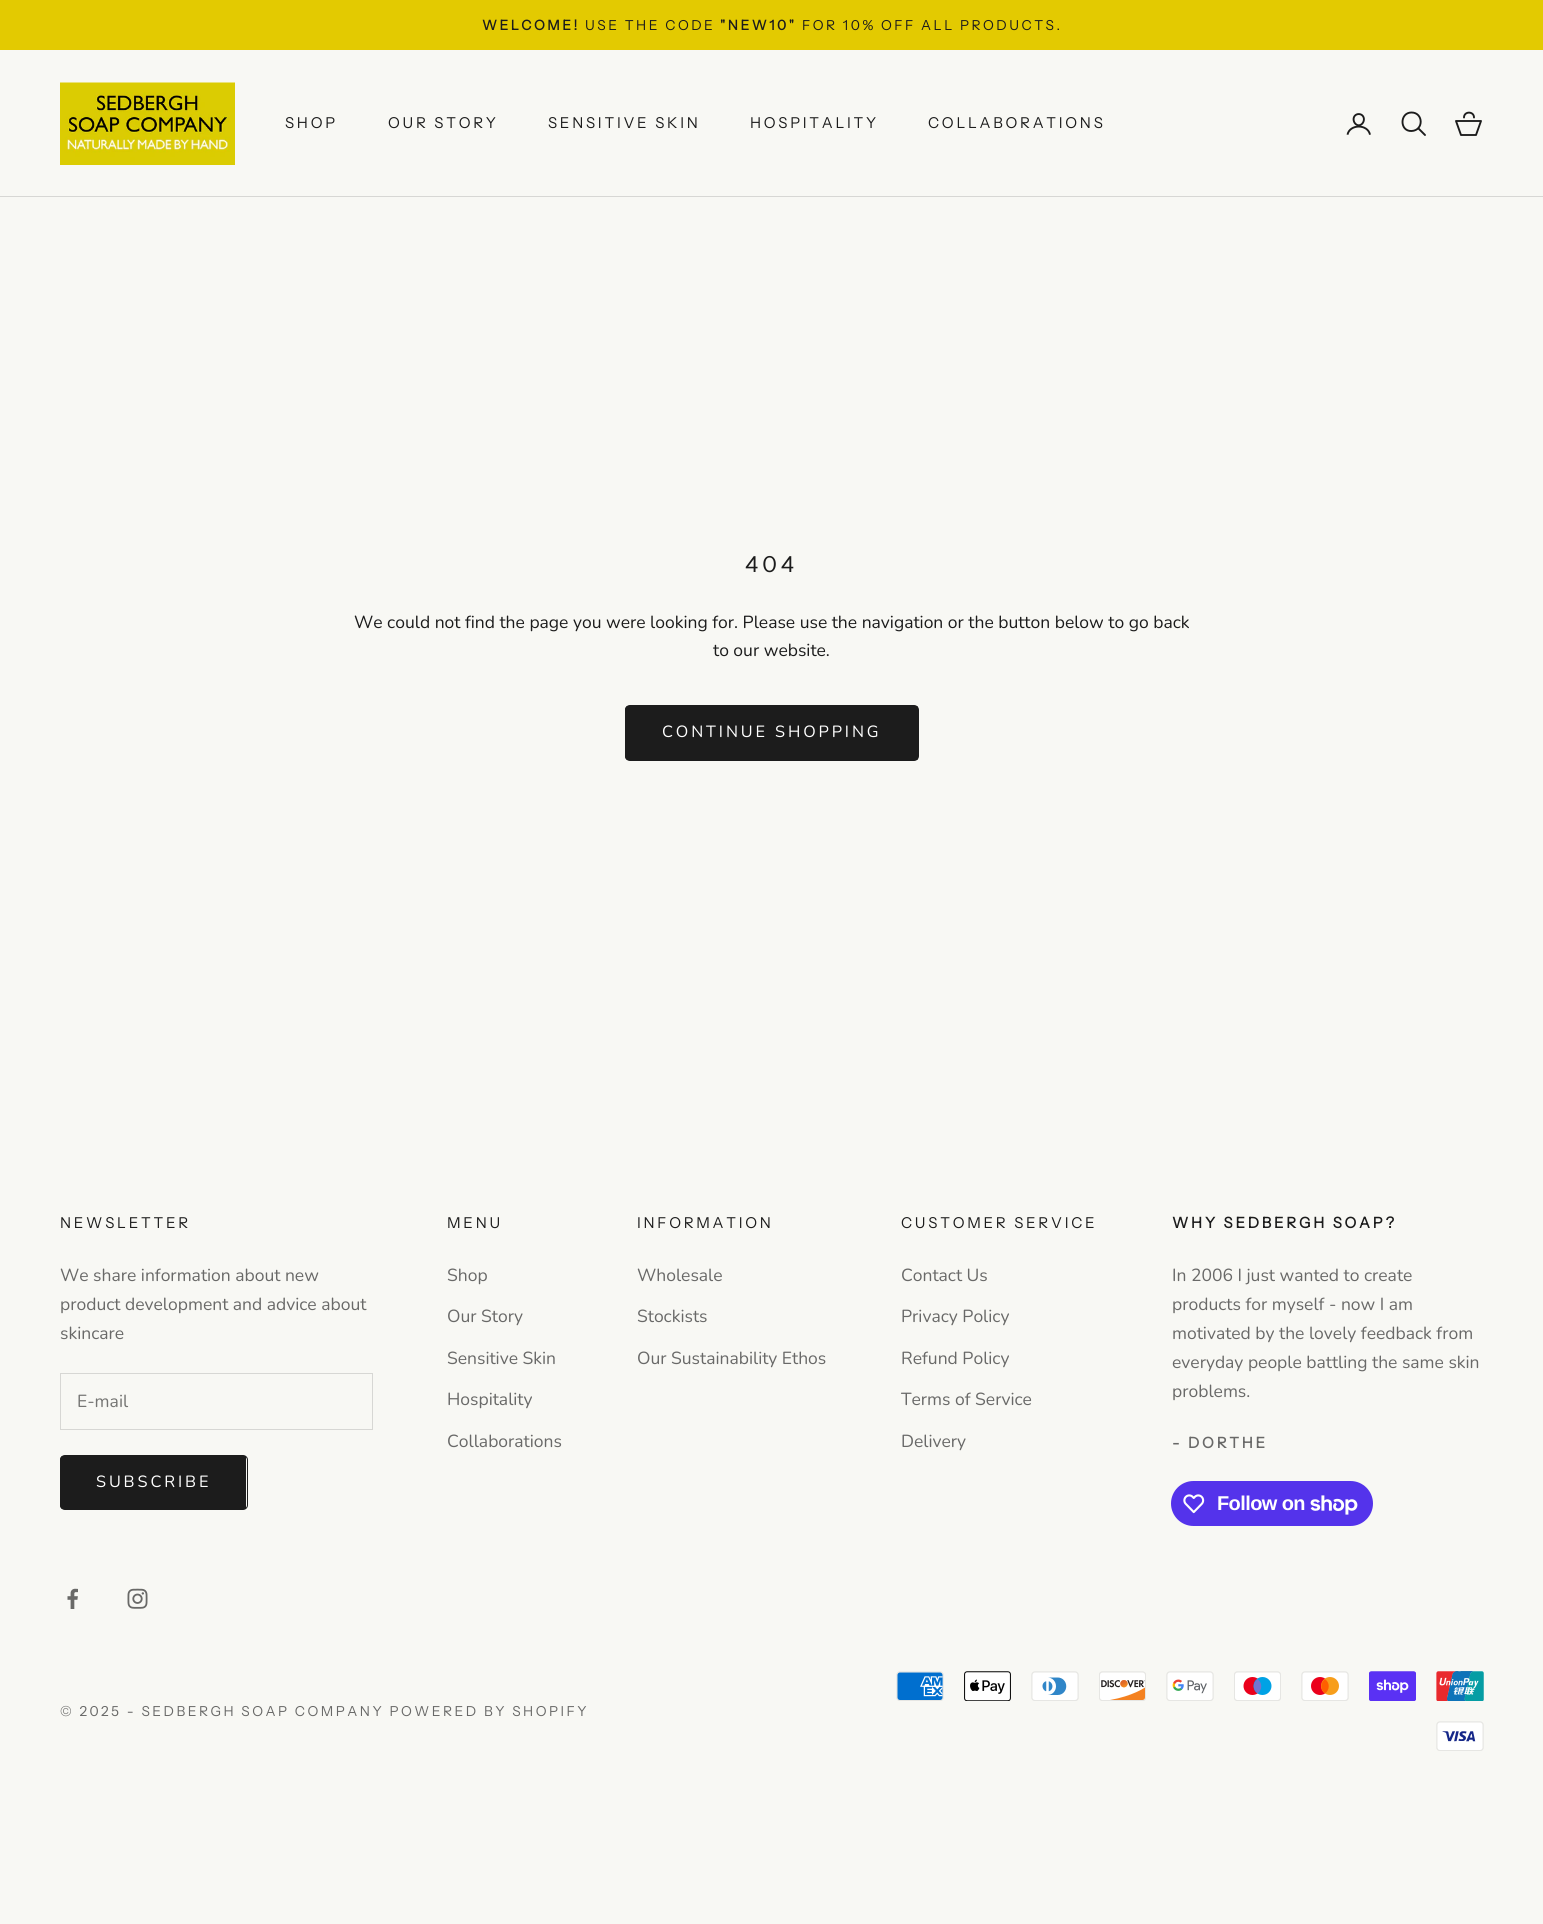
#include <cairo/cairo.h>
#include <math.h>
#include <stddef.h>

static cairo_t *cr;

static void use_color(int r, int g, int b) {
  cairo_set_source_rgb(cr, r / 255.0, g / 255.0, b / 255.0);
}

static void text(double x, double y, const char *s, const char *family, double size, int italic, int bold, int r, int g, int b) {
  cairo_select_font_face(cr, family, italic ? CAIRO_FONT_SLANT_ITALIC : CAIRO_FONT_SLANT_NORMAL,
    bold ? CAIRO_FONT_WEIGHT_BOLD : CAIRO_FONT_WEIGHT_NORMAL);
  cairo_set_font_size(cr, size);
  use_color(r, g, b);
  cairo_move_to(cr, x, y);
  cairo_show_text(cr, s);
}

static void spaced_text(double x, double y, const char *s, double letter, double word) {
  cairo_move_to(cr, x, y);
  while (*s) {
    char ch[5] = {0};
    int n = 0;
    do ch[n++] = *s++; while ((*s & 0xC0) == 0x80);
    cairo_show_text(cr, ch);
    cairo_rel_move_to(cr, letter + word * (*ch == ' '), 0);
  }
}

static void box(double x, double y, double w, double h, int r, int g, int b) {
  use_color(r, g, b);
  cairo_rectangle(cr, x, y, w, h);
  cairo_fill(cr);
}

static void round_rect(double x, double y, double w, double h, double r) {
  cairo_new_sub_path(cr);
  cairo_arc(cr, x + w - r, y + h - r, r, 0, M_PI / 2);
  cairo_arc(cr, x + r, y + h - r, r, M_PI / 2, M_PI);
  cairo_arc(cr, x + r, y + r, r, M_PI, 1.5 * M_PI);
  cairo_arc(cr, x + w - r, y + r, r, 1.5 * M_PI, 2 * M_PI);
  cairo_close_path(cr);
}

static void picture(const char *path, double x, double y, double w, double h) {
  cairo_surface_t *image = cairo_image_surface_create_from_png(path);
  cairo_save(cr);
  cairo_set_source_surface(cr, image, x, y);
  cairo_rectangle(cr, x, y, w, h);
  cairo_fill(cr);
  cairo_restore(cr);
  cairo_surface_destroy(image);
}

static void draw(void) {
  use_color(248, 248, 244);
  cairo_paint(cr);
  box(0, 0, 1543, 50, 227, 202, 1);
  box(0, 196, 1543, 1, 215, 215, 212);
  picture("img_01.png", 60, 82, 175, 83);
  picture("img_02.png", 1346, 113, 25, 22);
  cairo_new_path(cr);
  cairo_move_to(cr, 1411.5, 112.5);
  cairo_curve_to(cr, 1399.5, 112.5, 1399.5, 131.5, 1411.5, 131);
  cairo_curve_to(cr, 1424, 130.5, 1423.5, 112.5, 1411.5, 112.5);
  cairo_close_path(cr);
  use_color(28, 28, 28);
  cairo_set_line_width(cr, 1.9);
  cairo_stroke(cr);
  cairo_new_path(cr);
  cairo_move_to(cr, 1418.5, 128.5);
  cairo_line_to(cr, 1425, 135);
  cairo_set_line_cap(cr, CAIRO_LINE_CAP_ROUND);
  cairo_stroke(cr);
  cairo_new_path(cr);
  cairo_move_to(cr, 1456, 121);
  cairo_line_to(cr, 1481, 121);
  cairo_line_to(cr, 1476, 135);
  cairo_line_to(cr, 1461, 135);
  cairo_close_path(cr);
  cairo_move_to(cr, 1474, 117.5);
  cairo_curve_to(cr, 1474, 111, 1464, 111, 1464, 117.5);
  cairo_set_line_join(cr, CAIRO_LINE_JOIN_ROUND);
  cairo_stroke(cr);
  cairo_save(cr);
  round_rect(625, 705, 294, 56, 5);
  cairo_clip(cr);
  box(625, 706, 293, 54, 28, 28, 28);
  cairo_restore(cr);
  round_rect(625.5, 705.5, 293, 55, 4.5);
  cairo_set_line_width(cr, 1);
  cairo_set_line_cap(cr, CAIRO_LINE_CAP_BUTT);
  cairo_set_line_join(cr, CAIRO_LINE_JOIN_MITER);
  cairo_stroke(cr);
  cairo_rectangle(cr, 60.5, 1373.5, 312, 56);
  use_color(215, 215, 212);
  cairo_stroke(cr);
  cairo_save(cr);
  round_rect(60, 1455, 188, 55, 5);
  cairo_clip(cr);
  box(60, 1456, 186, 53, 28, 28, 28);
  cairo_restore(cr);
  round_rect(60.5, 1455.5, 187, 54, 4.5);
  use_color(28, 28, 28);
  cairo_stroke(cr);
  use_color(84, 51, 235);
  round_rect(1171, 1481, 202, 45, 22.5);
  cairo_fill(cr);
  picture("img_03.png", 1183, 1494, 22, 20);
  picture("img_04.png", 1310, 1495, 48, 20);
  picture("img_05.png", 67, 1588, 11, 21);
  picture("img_06.png", 127, 1588, 21, 21);
  picture("img_07.png", 896, 1671, 48, 30);
  picture("img_08.png", 964, 1671, 47, 30);
  picture("img_09.png", 1031, 1671, 48, 30);
  picture("img_10.png", 1099, 1671, 47, 30);
  picture("img_11.png", 1166, 1671, 48, 30);
  picture("img_12.png", 1234, 1671, 47, 30);
  picture("img_13.png", 1301, 1671, 48, 30);
  picture("img_14.png", 1369, 1671, 47, 30);
  picture("img_15.png", 1436, 1671, 48, 30);
  picture("img_16.png", 1436, 1721, 48, 30);
  cairo_select_font_face(cr, "Instrument Sans", CAIRO_FONT_SLANT_NORMAL, CAIRO_FONT_WEIGHT_BOLD);
  cairo_set_font_size(cr, 13.75);
  use_color(28, 28, 28);
  spaced_text(482, 30, "WELCOME!", 2.5, 0);
  cairo_select_font_face(cr, "Instrument Sans", CAIRO_FONT_SLANT_NORMAL, CAIRO_FONT_WEIGHT_NORMAL);
  spaced_text(585, 30, "USE THE CODE", 2.5, 0);
  cairo_select_font_face(cr, "Instrument Sans", CAIRO_FONT_SLANT_NORMAL, CAIRO_FONT_WEIGHT_BOLD);
  spaced_text(720, 30, "\"NEW10\"", 2.5, 0);
  cairo_select_font_face(cr, "Instrument Sans", CAIRO_FONT_SLANT_NORMAL, CAIRO_FONT_WEIGHT_NORMAL);
  spaced_text(802, 30, "FOR 10% OFF ALL PRODUCTS.", 2.5, 0);
  cairo_set_font_size(cr, 15);
  spaced_text(285, 128, "SHOP", 2.75, 0);
  spaced_text(388, 128, "OUR STORY", 2.75, 0);
  spaced_text(548, 128, "SENSITIVE SKIN", 2.75, 0);
  spaced_text(750, 128, "HOSPITALITY", 2.75, 0);
  spaced_text(928, 128, "COLLABORATIONS", 2.75, 0);
  cairo_set_font_size(cr, 22);
  spaced_text(745, 572, "404", 4, 0);
  text(354, 628, "We could not find the page you were looking for. Please use the navigation or the button below to go back", "Nunito", 17.5, 0, 0, 28, 28, 28);
  text(713, 656, "to our website.", "Nunito", 17.5, 0, 0, 28, 28, 28);
  cairo_set_font_size(cr, 16.25);
  use_color(255, 255, 255);
  spaced_text(662, 737, "CONTINUE SHOPPING", 2.9, 0);
  cairo_select_font_face(cr, "Instrument Sans", CAIRO_FONT_SLANT_NORMAL, CAIRO_FONT_WEIGHT_NORMAL);
  cairo_set_font_size(cr, 15);
  use_color(28, 28, 28);
  spaced_text(60, 1228, "NEWSLETTER", 2.75, 0);
  text(60, 1281, "We share information about new", "Nunito", 17.5, 0, 0, 105, 105, 104);
  text(60, 1310, "product development and advice about", "Nunito", 17.5, 0, 0, 105, 105, 104);
  text(60, 1339, "skincare", "Nunito", 17.5, 0, 0, 105, 105, 104);
  text(77, 1407, "E-mail", "Nunito", 17.5, 0, 0, 116, 116, 114);
  cairo_set_font_size(cr, 16.25);
  use_color(255, 255, 255);
  spaced_text(96, 1487, "SUBSCRIBE", 2.9, 0);
  cairo_select_font_face(cr, "Instrument Sans", CAIRO_FONT_SLANT_NORMAL, CAIRO_FONT_WEIGHT_NORMAL);
  cairo_set_font_size(cr, 15);
  use_color(28, 28, 28);
  spaced_text(447, 1228, "MENU", 2.75, 0);
  text(447, 1281, "Shop", "Nunito", 17.5, 0, 0, 105, 105, 104);
  text(447, 1322, "Our Story", "Nunito", 17.5, 0, 0, 105, 105, 104);
  text(447, 1364, "Sensitive Skin", "Nunito", 17.5, 0, 0, 105, 105, 104);
  text(447, 1405, "Hospitality", "Nunito", 17.5, 0, 0, 105, 105, 104);
  text(447, 1447, "Collaborations", "Nunito", 17.5, 0, 0, 105, 105, 104);
  cairo_select_font_face(cr, "Instrument Sans", CAIRO_FONT_SLANT_NORMAL, CAIRO_FONT_WEIGHT_NORMAL);
  cairo_set_font_size(cr, 15);
  use_color(28, 28, 28);
  spaced_text(637, 1228, "INFORMATION", 2.75, 0);
  text(637, 1281, "Wholesale", "Nunito", 17.5, 0, 0, 105, 105, 104);
  text(637, 1322, "Stockists", "Nunito", 17.5, 0, 0, 105, 105, 104);
  text(637, 1364, "Our Sustainability Ethos", "Nunito", 17.5, 0, 0, 105, 105, 104);
  cairo_select_font_face(cr, "Instrument Sans", CAIRO_FONT_SLANT_NORMAL, CAIRO_FONT_WEIGHT_NORMAL);
  cairo_set_font_size(cr, 15);
  use_color(28, 28, 28);
  spaced_text(901, 1228, "CUSTOMER SERVICE", 2.75, 0);
  text(901, 1281, "Contact Us", "Nunito", 17.5, 0, 0, 105, 105, 104);
  text(901, 1322, "Privacy Policy", "Nunito", 17.5, 0, 0, 105, 105, 104);
  text(901, 1364, "Refund Policy", "Nunito", 17.5, 0, 0, 105, 105, 104);
  text(901, 1405, "Terms of Service", "Nunito", 17.5, 0, 0, 105, 105, 104);
  text(901, 1447, "Delivery", "Nunito", 17.5, 0, 0, 105, 105, 104);
  cairo_select_font_face(cr, "Instrument Sans", CAIRO_FONT_SLANT_NORMAL, CAIRO_FONT_WEIGHT_BOLD);
  cairo_set_font_size(cr, 15);
  use_color(28, 28, 28);
  spaced_text(1172, 1228, "WHY SEDBERGH SOAP?", 2.75, 0);
  text(1172, 1281, "In 2006 I just wanted to create", "Nunito", 17.5, 0, 0, 105, 105, 104);
  text(1172, 1310, "products for myself - now I am", "Nunito", 17.5, 0, 0, 105, 105, 104);
  text(1172, 1339, "motivated by the lovely feedback from", "Nunito", 17.5, 0, 0, 105, 105, 104);
  text(1172, 1368, "everyday people battling the same skin", "Nunito", 17.5, 0, 0, 105, 105, 104);
  text(1172, 1397, "problems.", "Nunito", 17.5, 0, 0, 105, 105, 104);
  cairo_select_font_face(cr, "Instrument Sans", CAIRO_FONT_SLANT_NORMAL, CAIRO_FONT_WEIGHT_BOLD);
  cairo_set_font_size(cr, 15);
  spaced_text(1172, 1448, "- DORTHE", 2.75, 0);
  cairo_select_font_face(cr, "Liberation Sans", CAIRO_FONT_SLANT_NORMAL, CAIRO_FONT_WEIGHT_BOLD);
  cairo_set_font_size(cr, 20);
  use_color(255, 255, 255);
  spaced_text(1217, 1510, "Follow on", -0.6, 0);
  cairo_select_font_face(cr, "Instrument Sans", CAIRO_FONT_SLANT_NORMAL, CAIRO_FONT_WEIGHT_NORMAL);
  cairo_set_font_size(cr, 13.75);
  use_color(105, 105, 104);
  spaced_text(60, 1716, "© 2025 - SEDBERGH SOAP COMPANY POWERED BY SHOPIFY", 2.5, 0);
}

int main(void) {
  cairo_surface_t *surface = cairo_image_surface_create(CAIRO_FORMAT_RGB24, 1543, 1924);
  cr = cairo_create(surface);
  cairo_font_options_t *options = cairo_font_options_create();
  cairo_font_options_set_hint_metrics(options, CAIRO_HINT_METRICS_OFF);
  cairo_font_options_set_hint_style(options, CAIRO_HINT_STYLE_NONE);
  cairo_set_font_options(cr, options);
  cairo_set_miter_limit(cr, 4);
  draw();
  cairo_surface_write_to_png(surface, "out.png");
  cairo_font_options_destroy(options);
  cairo_destroy(cr);
  cairo_surface_destroy(surface);
  return 0;
}
